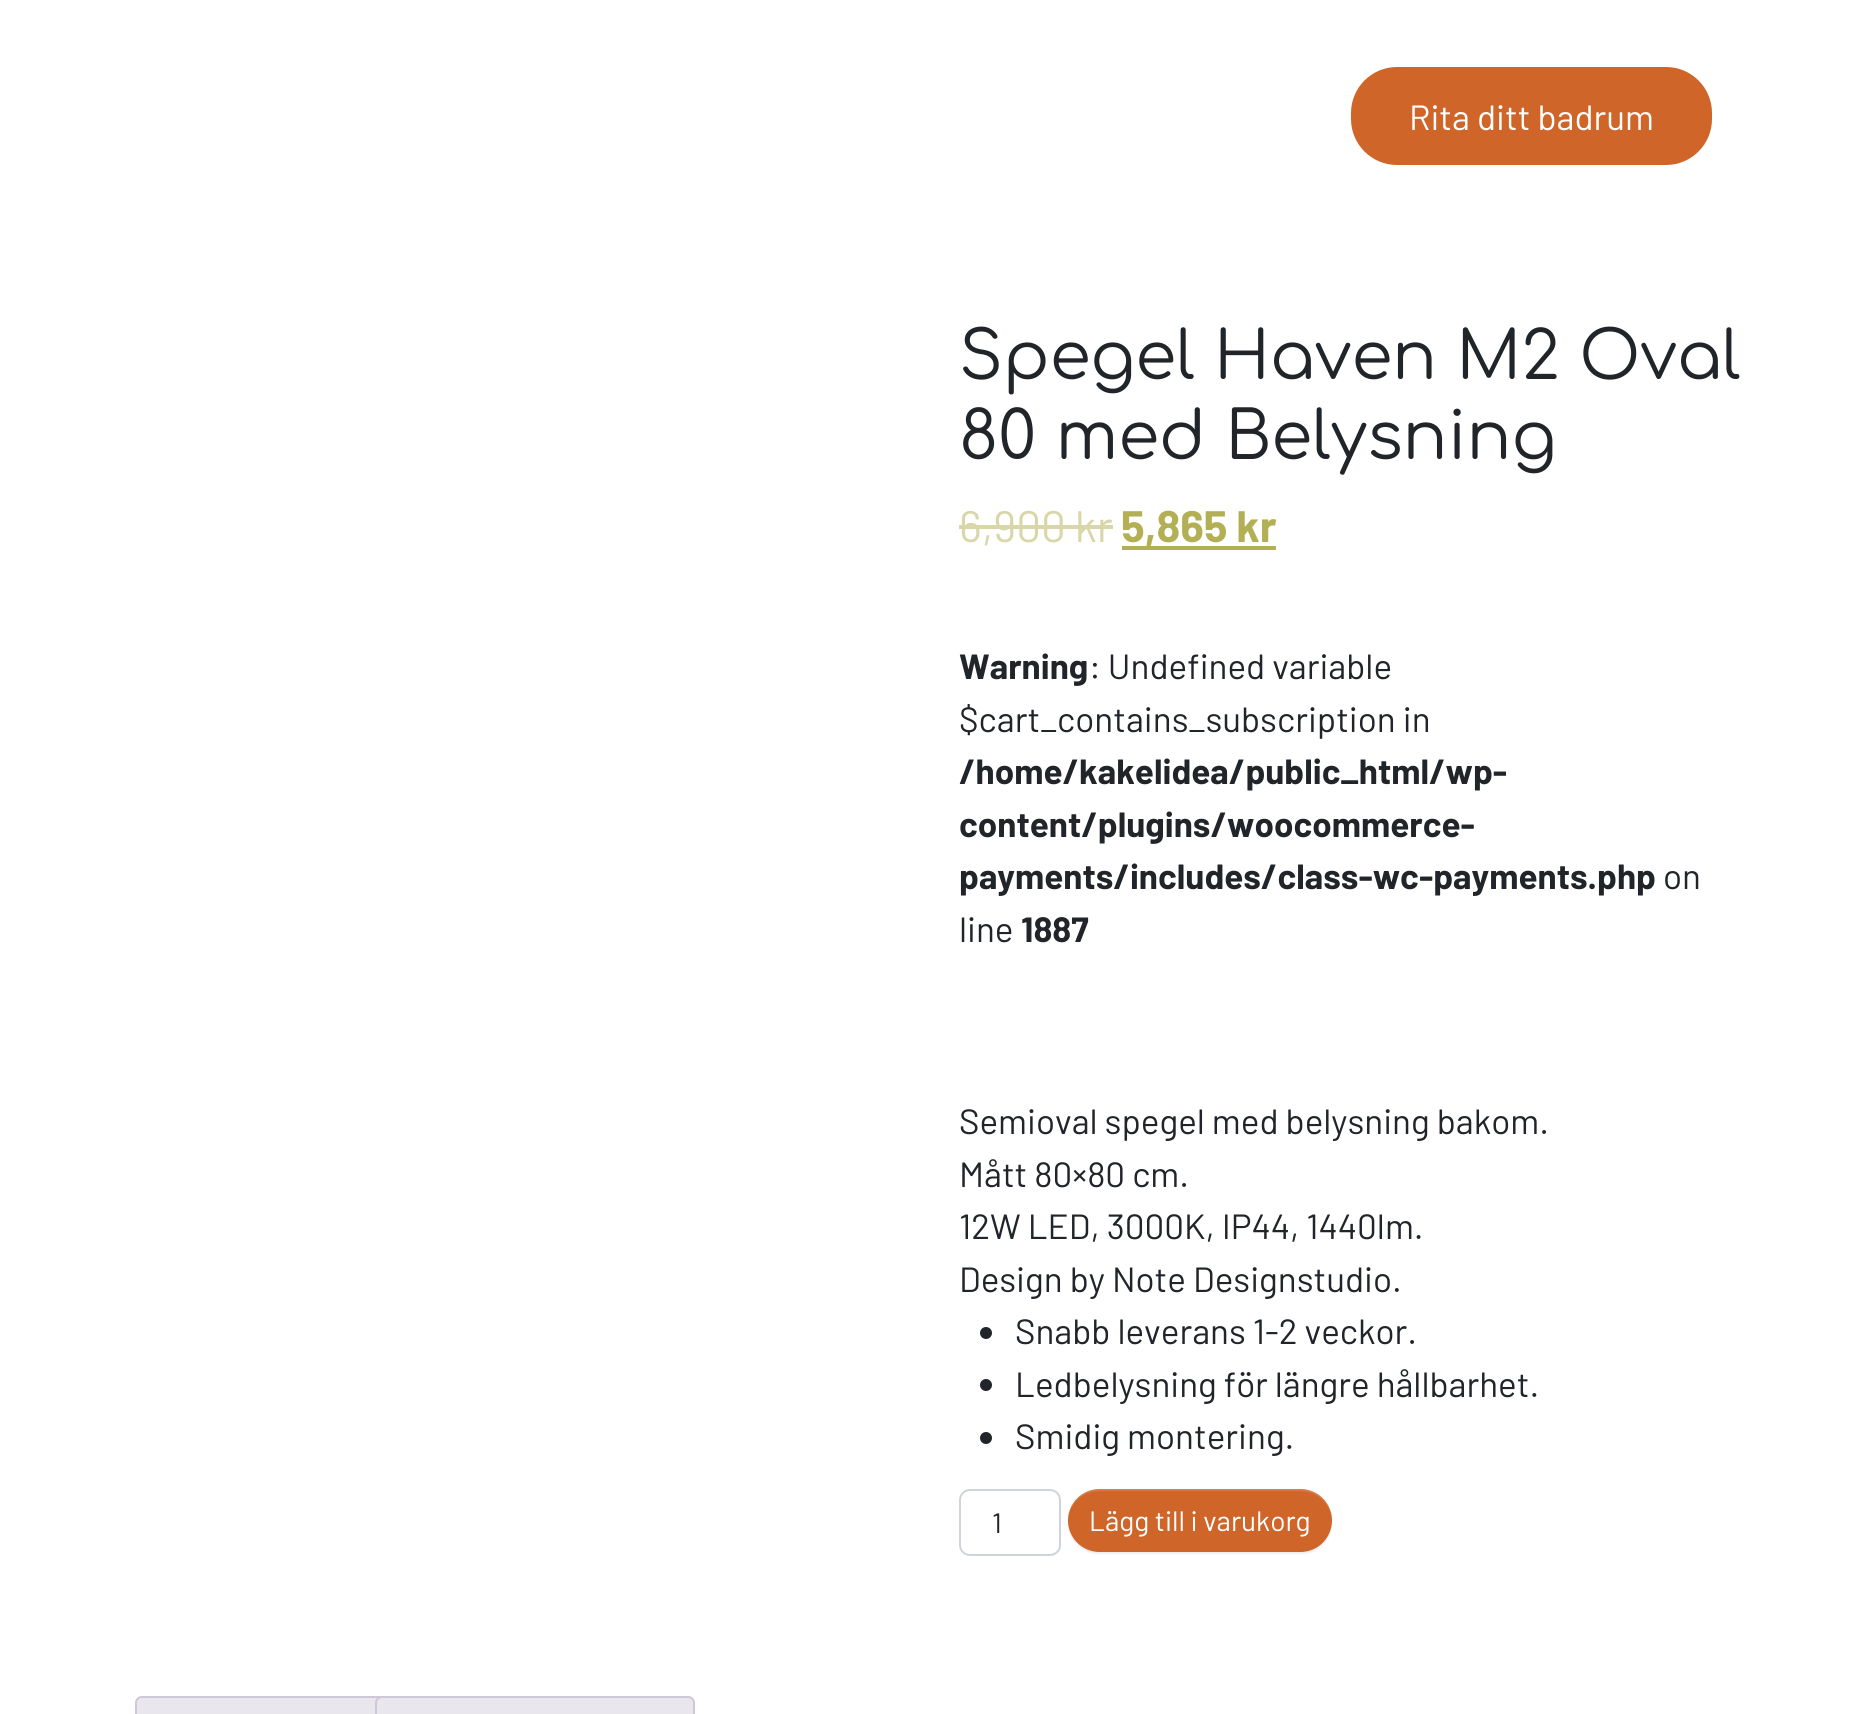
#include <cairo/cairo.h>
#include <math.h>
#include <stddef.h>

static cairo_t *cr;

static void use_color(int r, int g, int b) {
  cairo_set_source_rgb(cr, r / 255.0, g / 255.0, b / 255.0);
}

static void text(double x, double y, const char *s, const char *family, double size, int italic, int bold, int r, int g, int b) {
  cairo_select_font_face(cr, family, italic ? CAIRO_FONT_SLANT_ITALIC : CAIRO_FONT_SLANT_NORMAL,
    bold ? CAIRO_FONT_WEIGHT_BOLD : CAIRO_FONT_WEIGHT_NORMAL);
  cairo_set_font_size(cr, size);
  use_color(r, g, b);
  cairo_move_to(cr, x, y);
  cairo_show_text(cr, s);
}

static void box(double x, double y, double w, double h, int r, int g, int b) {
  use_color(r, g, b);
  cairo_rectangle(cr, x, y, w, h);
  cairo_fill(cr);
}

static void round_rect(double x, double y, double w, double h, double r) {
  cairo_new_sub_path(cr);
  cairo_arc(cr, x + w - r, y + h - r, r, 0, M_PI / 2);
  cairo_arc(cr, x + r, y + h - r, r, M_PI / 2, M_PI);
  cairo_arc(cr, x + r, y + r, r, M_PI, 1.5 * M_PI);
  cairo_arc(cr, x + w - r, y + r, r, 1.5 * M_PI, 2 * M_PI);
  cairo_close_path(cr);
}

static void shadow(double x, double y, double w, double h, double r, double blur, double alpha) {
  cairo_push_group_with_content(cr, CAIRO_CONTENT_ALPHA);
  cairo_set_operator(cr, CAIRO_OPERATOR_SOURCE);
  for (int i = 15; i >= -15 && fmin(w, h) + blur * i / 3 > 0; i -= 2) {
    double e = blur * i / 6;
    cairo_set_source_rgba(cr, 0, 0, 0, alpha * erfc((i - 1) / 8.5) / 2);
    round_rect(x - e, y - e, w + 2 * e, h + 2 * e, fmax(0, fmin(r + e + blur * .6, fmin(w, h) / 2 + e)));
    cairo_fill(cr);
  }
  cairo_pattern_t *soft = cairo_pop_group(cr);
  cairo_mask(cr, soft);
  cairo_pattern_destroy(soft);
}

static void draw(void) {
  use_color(255, 255, 255);
  cairo_paint(cr);
  use_color(207, 101, 41);
  round_rect(1352, 68, 359, 96, 45);
  cairo_fill_preserve(cr);
  cairo_stroke(cr);
  box(959, 525, 154, 4, 217, 215, 170);
  box(1122, 546, 154, 4, 179, 175, 84);
  use_color(33, 37, 41);
  cairo_arc(cr, 986, 1333, 6, 0, 2 * M_PI);
  cairo_fill(cr);
  cairo_arc(cr, 986, 1385, 6, 0, 2 * M_PI);
  cairo_fill(cr);
  cairo_arc(cr, 986, 1438, 6, 0, 2 * M_PI);
  cairo_fill(cr);
  round_rect(960, 1490, 100, 65, 10);
  use_color(206, 212, 218);
  cairo_stroke(cr);
  use_color(0, 0, 0);
  shadow(1068, 1491, 264, 63, 31.5, 1, 0.07);
  use_color(207, 101, 41);
  round_rect(1068, 1489, 264, 63, 31.5);
  cairo_fill(cr);
  cairo_set_source_rgba(cr, 1, 1, 1, 0.15);
  cairo_new_path(cr);
  cairo_move_to(cr, 1099, 1491);
  cairo_line_to(cr, 1300, 1491);
  cairo_curve_to(cr, 1318, 1491, 1332, 1505, 1332, 1521);
  cairo_line_to(cr, 1332, 1520);
  cairo_curve_to(cr, 1332, 1503, 1318, 1489, 1300, 1489);
  cairo_line_to(cr, 1100, 1489);
  cairo_curve_to(cr, 1082, 1489, 1068, 1503, 1068, 1520);
  cairo_line_to(cr, 1068, 1521);
  cairo_curve_to(cr, 1068, 1505, 1082, 1491, 1099, 1491);
  cairo_close_path(cr);
  cairo_fill(cr);
  use_color(233, 230, 237);
  cairo_new_path(cr);
  cairo_move_to(cr, 142, 1697);
  cairo_line_to(cr, 385, 1697);
  cairo_curve_to(cr, 388.5, 1697, 391, 1699.5, 391, 1703);
  cairo_line_to(cr, 391, 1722);
  cairo_line_to(cr, 136, 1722);
  cairo_line_to(cr, 136, 1703);
  cairo_curve_to(cr, 136, 1699.5, 138.5, 1697, 142, 1697);
  cairo_close_path(cr);
  cairo_fill_preserve(cr);
  use_color(207, 200, 216);
  cairo_stroke(cr);
  use_color(233, 230, 237);
  cairo_new_path(cr);
  cairo_move_to(cr, 382, 1697);
  cairo_line_to(cr, 688, 1697);
  cairo_curve_to(cr, 691.5, 1697, 694, 1699.5, 694, 1703);
  cairo_line_to(cr, 694, 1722);
  cairo_line_to(cr, 376, 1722);
  cairo_line_to(cr, 376, 1703);
  cairo_curve_to(cr, 376, 1699.5, 378.5, 1697, 382, 1697);
  cairo_close_path(cr);
  cairo_fill_preserve(cr);
  use_color(207, 200, 216);
  cairo_stroke(cr);
  text(1409, 130, "Rita ditt badrum", "Barlow", 35, 0, 0, 255, 255, 255);
  text(959, 379, "Spegel Haven M2 Oval", "Comfortaa", 66.25, 0, 0, 33, 37, 41);
  text(959, 459, "80 med Belysning", "Comfortaa", 66.25, 0, 0, 33, 37, 41);
  text(959, 542, "6,900 kr", "Barlow", 44, 0, 0, 217, 215, 170);
  text(1121, 542, "5,865 kr", "Barlow", 44, 0, 1, 179, 175, 84);
  text(959, 679, "Warning", "Barlow", 35, 0, 1, 33, 37, 41);
  text(1089, 679, ": Undefined variable", "Barlow", 35, 0, 0, 33, 37, 41);
  text(959, 732, "$cart_contains_subscription in", "Barlow", 35, 0, 0, 33, 37, 41);
  text(959, 784, "/home/kakelidea/public_html/wp-", "Barlow", 35, 0, 1, 33, 37, 41);
  text(959, 837, "content/plugins/woocommerce-", "Barlow", 35, 0, 1, 33, 37, 41);
  text(959, 889, "payments/includes/class-wc-payments.php", "Barlow", 35, 0, 1, 33, 37, 41);
  text(1663, 889, "on", "Barlow", 35, 0, 0, 33, 37, 41);
  text(959, 942, "line", "Barlow", 35, 0, 0, 33, 37, 41);
  text(1021, 942, "1887", "Barlow", 35, 0, 1, 33, 37, 41);
  text(959, 1134, "Semioval spegel med belysning bakom.", "Barlow", 35, 0, 0, 33, 37, 41);
  text(959, 1187, "Mått 80×80 cm.", "Barlow", 35, 0, 0, 33, 37, 41);
  text(959, 1239, "12W LED, 3000K, IP44, 1440lm.", "Barlow", 35, 0, 0, 33, 37, 41);
  text(959, 1292, "Design by Note Designstudio.", "Barlow", 35, 0, 0, 33, 37, 41);
  text(1015, 1344, "Snabb leverans 1-2 veckor.", "Barlow", 35, 0, 0, 33, 37, 41);
  text(1015, 1397, "Ledbelysning för längre hållbarhet.", "Barlow", 35, 0, 0, 33, 37, 41);
  text(1015, 1449, "Smidig montering.", "Barlow", 35, 0, 0, 33, 37, 41);
  text(992, 1533, "1", "Barlow", 28, 0, 0, 33, 37, 41);
  text(1089, 1531, "Lägg till i varukorg", "Barlow", 28, 0, 0, 255, 255, 255);
}

int main(void) {
  cairo_surface_t *surface = cairo_image_surface_create(CAIRO_FORMAT_RGB24, 1853, 1714);
  cr = cairo_create(surface);
  cairo_font_options_t *options = cairo_font_options_create();
  cairo_font_options_set_hint_metrics(options, CAIRO_HINT_METRICS_OFF);
  cairo_font_options_set_hint_style(options, CAIRO_HINT_STYLE_NONE);
  cairo_set_font_options(cr, options);
  cairo_set_miter_limit(cr, 4);
  draw();
  cairo_surface_write_to_png(surface, "out.png");
  cairo_font_options_destroy(options);
  cairo_destroy(cr);
  cairo_surface_destroy(surface);
  return 0;
}
